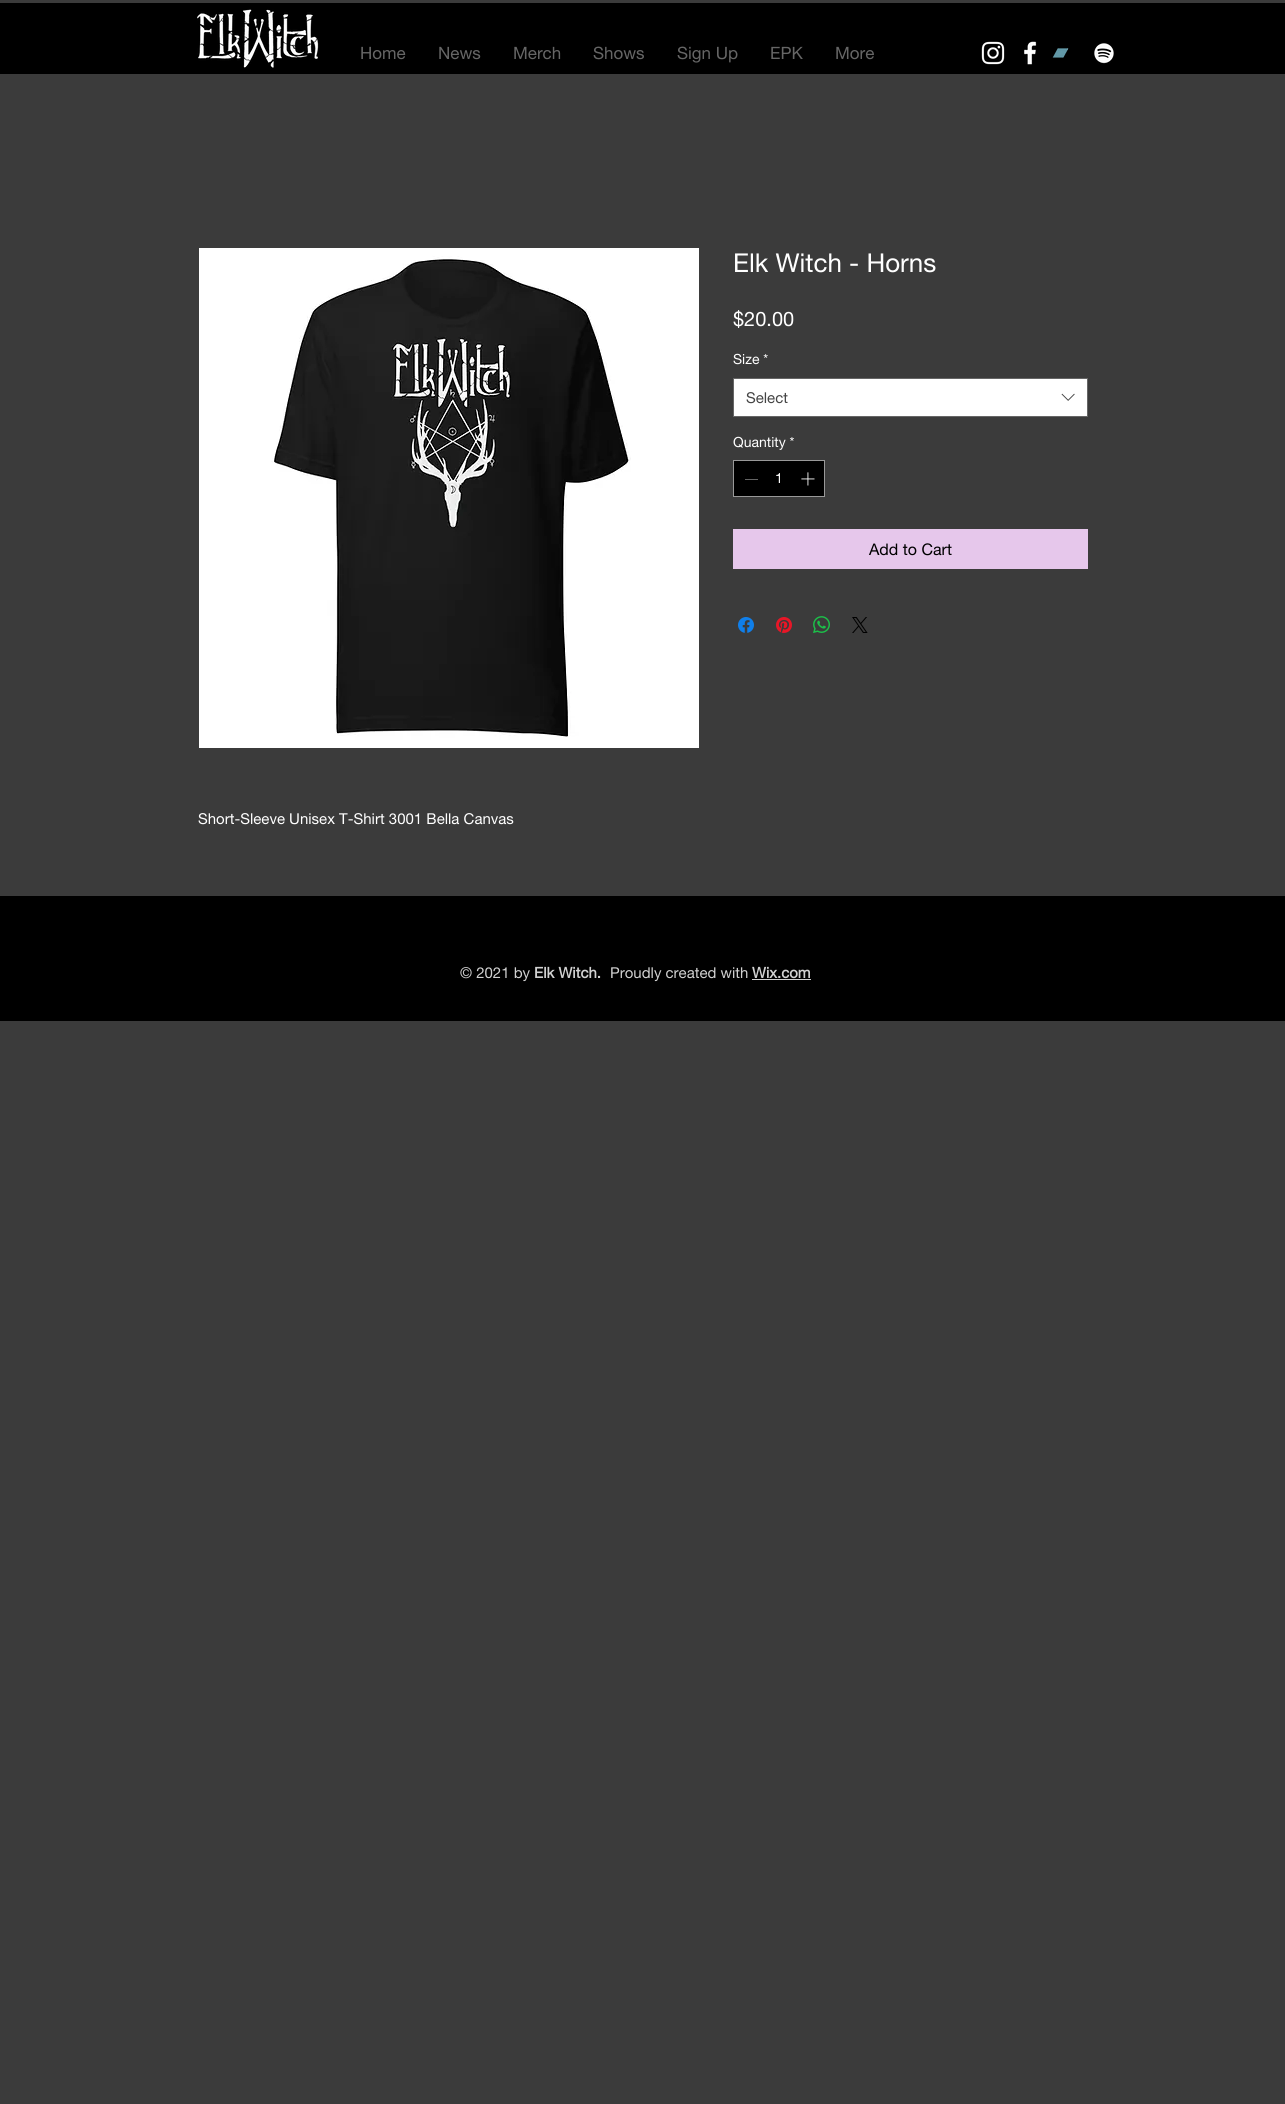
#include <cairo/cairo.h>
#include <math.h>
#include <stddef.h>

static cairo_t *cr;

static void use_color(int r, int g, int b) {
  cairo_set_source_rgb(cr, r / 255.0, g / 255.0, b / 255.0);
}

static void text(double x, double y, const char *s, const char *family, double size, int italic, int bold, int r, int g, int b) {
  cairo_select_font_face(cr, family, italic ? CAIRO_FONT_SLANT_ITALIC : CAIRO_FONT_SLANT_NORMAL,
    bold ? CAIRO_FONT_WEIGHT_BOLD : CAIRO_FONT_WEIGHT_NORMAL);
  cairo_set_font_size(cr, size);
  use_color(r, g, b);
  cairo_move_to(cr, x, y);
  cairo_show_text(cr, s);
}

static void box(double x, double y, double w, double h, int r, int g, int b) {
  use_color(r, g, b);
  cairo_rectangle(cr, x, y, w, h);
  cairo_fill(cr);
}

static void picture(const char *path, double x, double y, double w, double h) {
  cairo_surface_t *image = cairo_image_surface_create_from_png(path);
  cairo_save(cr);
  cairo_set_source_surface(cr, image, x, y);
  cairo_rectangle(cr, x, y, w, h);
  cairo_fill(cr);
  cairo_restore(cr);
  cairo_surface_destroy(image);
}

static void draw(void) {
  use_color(59, 59, 59);
  cairo_paint(cr);
  box(0, 3, 1285, 71, 0, 0, 0);
  picture("img_01.png", 197, 9, 122, 59);
  picture("img_02.png", 981, 41, 24, 24);
  picture("img_03.png", 1024, 41, 13, 24);
  picture("img_04.png", 1052, 48, 17, 10);
  picture("img_05.png", 1094, 43, 20, 21);
  use_color(255, 255, 255);
  cairo_rectangle(cr, 733.5, 378.5, 354, 38);
  cairo_fill_preserve(cr);
  use_color(102, 102, 102);
  cairo_set_line_width(cr, 1);
  cairo_stroke(cr);
  picture("img_06.png", 1061, 393, 14, 8);
  use_color(0, 0, 0);
  cairo_rectangle(cr, 733.5, 460.5, 91, 36);
  cairo_fill_preserve(cr);
  use_color(153, 153, 153);
  cairo_stroke(cr);
  box(745, 479, 13, 1, 100, 100, 100);
  picture("img_07.png", 801, 472, 14, 14);
  box(733, 529, 355, 40, 230, 199, 235);
  picture("img_08.png", 738, 617, 16, 16);
  picture("img_09.png", 776, 617, 16, 16);
  picture("img_10.png", 813, 616, 17, 17);
  picture("img_11.png", 852, 617, 16, 16);
  picture("img_12.png", 199, 248, 500, 500);
  box(0, 896, 1285, 125, 0, 0, 0);
  box(752, 979, 59, 1, 209, 209, 209);
  text(360, 59, "Home", "helvetica neue", 17, 0, 0, 102, 102, 102);
  text(438, 59, "News", "helvetica neue", 17, 0, 0, 102, 102, 102);
  text(513, 59, "Merch", "helvetica neue", 17, 0, 0, 102, 102, 102);
  text(593, 59, "Shows", "helvetica neue", 17, 0, 0, 102, 102, 102);
  text(677, 59, "Sign Up", "helvetica neue", 17, 0, 0, 102, 102, 102);
  text(770, 59, "EPK", "helvetica neue", 17, 0, 0, 102, 102, 102);
  text(835, 59, "More", "helvetica neue", 17, 0, 0, 102, 102, 102);
  text(733, 272, "Elk Witch - Horns", "helvetica neue", 26, 0, 0, 255, 255, 255);
  text(733, 326, "$20.00", "helvetica neue", 20, 0, 0, 255, 255, 255);
  text(733, 364, "Size *", "helvetica neue", 14, 0, 0, 255, 255, 255);
  text(746, 403, "Select", "helvetica neue", 15, 0, 0, 68, 68, 68);
  text(733, 447, "Quantity *", "helvetica neue", 14, 0, 0, 255, 255, 255);
  text(775, 483, "1", "helvetica neue", 14, 0, 0, 255, 255, 255);
  text(869, 555, "Add to Cart", "helvetica neue", 16, 0, 0, 0, 0, 0);
  text(198, 824, "Short-Sleeve Unisex T-Shirt 3001 Bella Canvas", "helvetica neue", 15, 0, 0, 255, 255, 255);
  text(460, 978, "© 2021 by", "helvetica neue", 15, 0, 0, 209, 209, 209);
  text(534, 978, "Elk Witch.", "helvetica neue", 15, 0, 1, 209, 209, 209);
  text(610, 978, "Proudly created with", "helvetica neue", 15, 0, 0, 209, 209, 209);
  text(752, 978, "Wix.com", "helvetica neue", 15, 0, 1, 209, 209, 209);
}

int main(void) {
  cairo_surface_t *surface = cairo_image_surface_create(CAIRO_FORMAT_RGB24, 1285, 2104);
  cr = cairo_create(surface);
  cairo_font_options_t *options = cairo_font_options_create();
  cairo_font_options_set_hint_metrics(options, CAIRO_HINT_METRICS_OFF);
  cairo_font_options_set_hint_style(options, CAIRO_HINT_STYLE_NONE);
  cairo_set_font_options(cr, options);
  cairo_set_miter_limit(cr, 4);
  draw();
  cairo_surface_write_to_png(surface, "out.png");
  cairo_font_options_destroy(options);
  cairo_destroy(cr);
  cairo_surface_destroy(surface);
  return 0;
}
